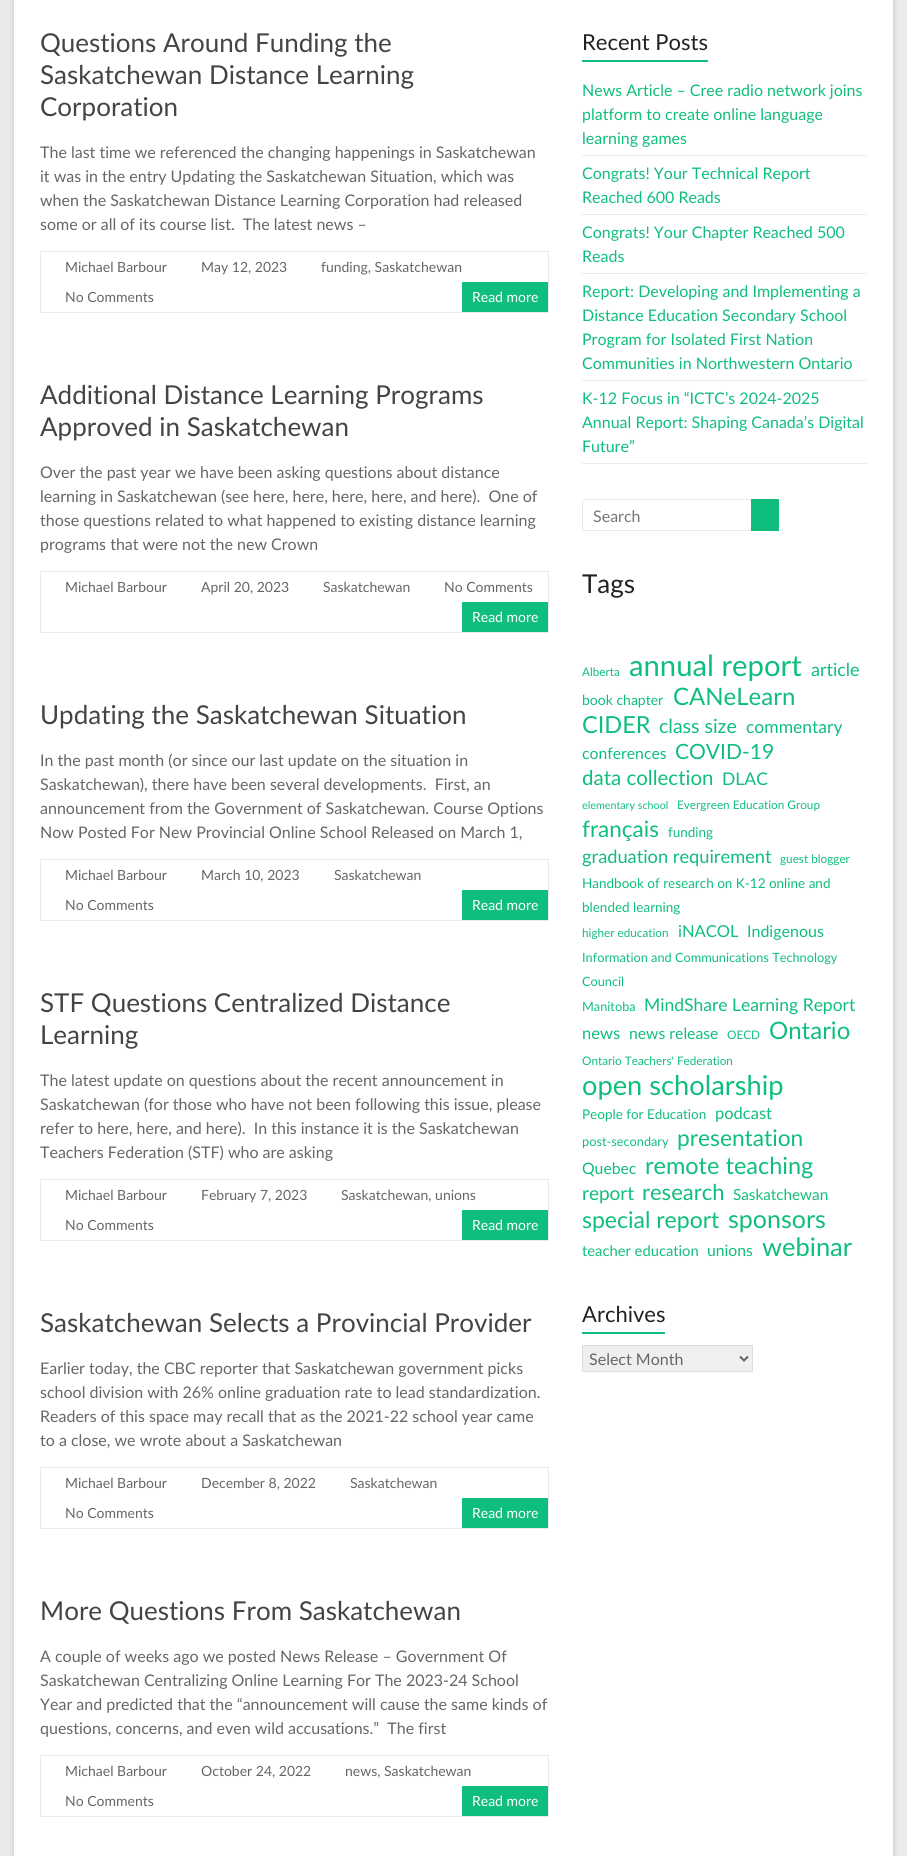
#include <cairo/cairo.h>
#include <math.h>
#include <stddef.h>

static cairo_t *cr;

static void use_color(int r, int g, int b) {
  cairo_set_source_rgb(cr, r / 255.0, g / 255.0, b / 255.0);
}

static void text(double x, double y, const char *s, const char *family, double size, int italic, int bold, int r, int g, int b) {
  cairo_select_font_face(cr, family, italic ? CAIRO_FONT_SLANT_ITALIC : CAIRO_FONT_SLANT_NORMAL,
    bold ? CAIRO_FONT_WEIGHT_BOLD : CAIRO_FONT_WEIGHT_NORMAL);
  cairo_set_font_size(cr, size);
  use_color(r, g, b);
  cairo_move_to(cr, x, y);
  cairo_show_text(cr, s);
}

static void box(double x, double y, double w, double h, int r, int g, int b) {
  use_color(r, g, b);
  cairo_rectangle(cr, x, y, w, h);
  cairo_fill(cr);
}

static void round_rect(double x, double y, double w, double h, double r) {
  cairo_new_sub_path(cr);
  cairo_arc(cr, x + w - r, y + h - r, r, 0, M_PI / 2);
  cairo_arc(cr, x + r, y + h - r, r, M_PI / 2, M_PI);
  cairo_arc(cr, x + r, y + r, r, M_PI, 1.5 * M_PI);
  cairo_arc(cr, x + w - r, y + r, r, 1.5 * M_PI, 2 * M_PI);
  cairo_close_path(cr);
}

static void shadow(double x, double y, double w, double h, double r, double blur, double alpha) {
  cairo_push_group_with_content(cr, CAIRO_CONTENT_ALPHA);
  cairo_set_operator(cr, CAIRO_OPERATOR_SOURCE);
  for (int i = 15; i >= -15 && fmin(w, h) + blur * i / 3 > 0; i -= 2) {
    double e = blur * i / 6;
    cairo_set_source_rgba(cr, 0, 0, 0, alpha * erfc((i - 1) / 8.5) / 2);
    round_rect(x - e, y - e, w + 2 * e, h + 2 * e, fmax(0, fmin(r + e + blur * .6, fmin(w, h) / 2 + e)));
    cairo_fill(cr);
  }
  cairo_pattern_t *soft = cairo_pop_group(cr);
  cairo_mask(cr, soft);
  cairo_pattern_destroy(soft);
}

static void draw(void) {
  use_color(234, 234, 234);
  cairo_paint(cr);
  use_color(100, 100, 100);
  shadow(14, -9, 879, 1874, 0, 3, 0.3);
  box(14, 0, 879, 1856, 255, 255, 255);
  cairo_rectangle(cr, 40.5, 251.5, 508, 61);
  use_color(234, 234, 234);
  cairo_set_line_width(cr, 1);
  cairo_stroke(cr);
  box(462, 282, 86, 30, 15, 190, 124);
  cairo_rectangle(cr, 40.5, 571.5, 508, 61);
  use_color(234, 234, 234);
  cairo_stroke(cr);
  box(462, 602, 86, 30, 15, 190, 124);
  cairo_rectangle(cr, 40.5, 859.5, 508, 61);
  use_color(234, 234, 234);
  cairo_stroke(cr);
  box(462, 890, 86, 30, 15, 190, 124);
  cairo_rectangle(cr, 40.5, 1179.5, 508, 61);
  use_color(234, 234, 234);
  cairo_stroke(cr);
  box(462, 1210, 86, 30, 15, 190, 124);
  cairo_rectangle(cr, 40.5, 1467.5, 508, 61);
  use_color(234, 234, 234);
  cairo_stroke(cr);
  box(462, 1498, 86, 30, 15, 190, 124);
  cairo_rectangle(cr, 40.5, 1755.5, 508, 61);
  use_color(234, 234, 234);
  cairo_stroke(cr);
  box(462, 1786, 86, 30, 15, 190, 124);
  box(582, 60, 126, 2, 15, 190, 124);
  box(582, 155, 285, 1, 234, 234, 234);
  box(582, 214, 285, 1, 234, 234, 234);
  box(582, 273, 285, 1, 234, 234, 234);
  box(582, 380, 285, 1, 234, 234, 234);
  box(582, 463, 285, 1, 234, 234, 234);
  round_rect(582.5, 499.5, 170, 31, 2.5);
  cairo_stroke(cr);
  box(751, 499, 28, 32, 15, 190, 124);
  box(582, 1332, 83, 2, 15, 190, 124);
  use_color(239, 239, 239);
  cairo_rectangle(cr, 582.5, 1345.5, 170, 26);
  cairo_fill_preserve(cr);
  use_color(221, 221, 221);
  cairo_stroke(cr);
  cairo_new_path(cr);
  cairo_move_to(cr, 740, 1356.5);
  cairo_line_to(cr, 744, 1360.5);
  cairo_line_to(cr, 748, 1356.5);
  use_color(102, 102, 102);
  cairo_set_line_width(cr, 2);
  cairo_stroke(cr);
  text(40, 52, "Questions Around Funding the", "Lato", 26, 0, 0, 68, 68, 68);
  text(40, 84, "Saskatchewan Distance Learning", "Lato", 26, 0, 0, 68, 68, 68);
  text(40, 116, "Corporation", "Lato", 26, 0, 0, 68, 68, 68);
  text(40, 158, "The last time we referenced the changing happenings in Saskatchewan", "Lato", 16, 0, 0, 102, 102, 102);
  text(40, 182, "it was in the entry Updating the Saskatchewan Situation, which was", "Lato", 16, 0, 0, 102, 102, 102);
  text(40, 206, "when the Saskatchewan Distance Learning Corporation had released", "Lato", 16, 0, 0, 102, 102, 102);
  text(40, 230, "some or all of its course list.  The latest news –", "Lato", 16, 0, 0, 102, 102, 102);
  text(65, 272, "Michael Barbour", "Lato", 14, 0, 0, 102, 102, 102);
  text(201, 272, "May 12, 2023", "Lato", 14, 0, 0, 102, 102, 102);
  text(321, 272, "funding, Saskatchewan", "Lato", 14, 0, 0, 102, 102, 102);
  text(65, 302, "No Comments", "Lato", 14, 0, 0, 102, 102, 102);
  text(472, 302, "Read more", "Lato", 14, 0, 0, 255, 255, 255);
  text(40, 404, "Additional Distance Learning Programs", "Lato", 26, 0, 0, 68, 68, 68);
  text(40, 436, "Approved in Saskatchewan", "Lato", 26, 0, 0, 68, 68, 68);
  text(40, 478, "Over the past year we have been asking questions about distance", "Lato", 16, 0, 0, 102, 102, 102);
  text(40, 502, "learning in Saskatchewan (see here, here, here, here, and here).  One of", "Lato", 16, 0, 0, 102, 102, 102);
  text(40, 526, "those questions related to what happened to existing distance learning", "Lato", 16, 0, 0, 102, 102, 102);
  text(40, 550, "programs that were not the new Crown", "Lato", 16, 0, 0, 102, 102, 102);
  text(65, 592, "Michael Barbour", "Lato", 14, 0, 0, 102, 102, 102);
  text(201, 592, "April 20, 2023", "Lato", 14, 0, 0, 102, 102, 102);
  text(323, 592, "Saskatchewan", "Lato", 14, 0, 0, 102, 102, 102);
  text(444, 592, "No Comments", "Lato", 14, 0, 0, 102, 102, 102);
  text(472, 622, "Read more", "Lato", 14, 0, 0, 255, 255, 255);
  text(40, 724, "Updating the Saskatchewan Situation", "Lato", 26, 0, 0, 68, 68, 68);
  text(40, 766, "In the past month (or since our last update on the situation in", "Lato", 16, 0, 0, 102, 102, 102);
  text(40, 790, "Saskatchewan), there have been several developments.  First, an", "Lato", 16, 0, 0, 102, 102, 102);
  text(40, 814, "announcement from the Government of Saskatchewan. Course Options", "Lato", 16, 0, 0, 102, 102, 102);
  text(40, 838, "Now Posted For New Provincial Online School Released on March 1,", "Lato", 16, 0, 0, 102, 102, 102);
  text(65, 880, "Michael Barbour", "Lato", 14, 0, 0, 102, 102, 102);
  text(201, 880, "March 10, 2023", "Lato", 14, 0, 0, 102, 102, 102);
  text(334, 880, "Saskatchewan", "Lato", 14, 0, 0, 102, 102, 102);
  text(65, 910, "No Comments", "Lato", 14, 0, 0, 102, 102, 102);
  text(472, 910, "Read more", "Lato", 14, 0, 0, 255, 255, 255);
  text(40, 1012, "STF Questions Centralized Distance", "Lato", 26, 0, 0, 68, 68, 68);
  text(40, 1044, "Learning", "Lato", 26, 0, 0, 68, 68, 68);
  text(40, 1086, "The latest update on questions about the recent announcement in", "Lato", 16, 0, 0, 102, 102, 102);
  text(40, 1110, "Saskatchewan (for those who have not been following this issue, please", "Lato", 16, 0, 0, 102, 102, 102);
  text(40, 1134, "refer to here, here, and here).  In this instance it is the Saskatchewan", "Lato", 16, 0, 0, 102, 102, 102);
  text(40, 1158, "Teachers Federation (STF) who are asking", "Lato", 16, 0, 0, 102, 102, 102);
  text(65, 1200, "Michael Barbour", "Lato", 14, 0, 0, 102, 102, 102);
  text(201, 1200, "February 7, 2023", "Lato", 14, 0, 0, 102, 102, 102);
  text(341, 1200, "Saskatchewan, unions", "Lato", 14, 0, 0, 102, 102, 102);
  text(65, 1230, "No Comments", "Lato", 14, 0, 0, 102, 102, 102);
  text(472, 1230, "Read more", "Lato", 14, 0, 0, 255, 255, 255);
  text(40, 1332, "Saskatchewan Selects a Provincial Provider", "Lato", 26, 0, 0, 68, 68, 68);
  text(40, 1374, "Earlier today, the CBC reporter that Saskatchewan government picks", "Lato", 16, 0, 0, 102, 102, 102);
  text(40, 1398, "school division with 26% online graduation rate to lead standardization.", "Lato", 16, 0, 0, 102, 102, 102);
  text(40, 1422, "Readers of this space may recall that as the 2021-22 school year came", "Lato", 16, 0, 0, 102, 102, 102);
  text(40, 1446, "to a close, we wrote about a Saskatchewan", "Lato", 16, 0, 0, 102, 102, 102);
  text(65, 1488, "Michael Barbour", "Lato", 14, 0, 0, 102, 102, 102);
  text(201, 1488, "December 8, 2022", "Lato", 14, 0, 0, 102, 102, 102);
  text(350, 1488, "Saskatchewan", "Lato", 14, 0, 0, 102, 102, 102);
  text(65, 1518, "No Comments", "Lato", 14, 0, 0, 102, 102, 102);
  text(472, 1518, "Read more", "Lato", 14, 0, 0, 255, 255, 255);
  text(40, 1620, "More Questions From Saskatchewan", "Lato", 26, 0, 0, 68, 68, 68);
  text(40, 1662, "A couple of weeks ago we posted News Release – Government Of", "Lato", 16, 0, 0, 102, 102, 102);
  text(40, 1686, "Saskatchewan Centralizing Online Learning For The 2023-24 School", "Lato", 16, 0, 0, 102, 102, 102);
  text(40, 1710, "Year and predicted that the “announcement will cause the same kinds of", "Lato", 16, 0, 0, 102, 102, 102);
  text(40, 1734, "questions, concerns, and even wild accusations.”  The first", "Lato", 16, 0, 0, 102, 102, 102);
  text(65, 1776, "Michael Barbour", "Lato", 14, 0, 0, 102, 102, 102);
  text(201, 1776, "October 24, 2022", "Lato", 14, 0, 0, 102, 102, 102);
  text(345, 1776, "news, Saskatchewan", "Lato", 14, 0, 0, 102, 102, 102);
  text(65, 1806, "No Comments", "Lato", 14, 0, 0, 102, 102, 102);
  text(472, 1806, "Read more", "Lato", 14, 0, 0, 255, 255, 255);
  text(582, 50, "Recent Posts", "Lato", 22, 0, 0, 34, 34, 34);
  text(582, 96, "News Article – Cree radio network joins", "Lato", 16, 0, 0, 15, 190, 124);
  text(582, 120, "platform to create online language", "Lato", 16, 0, 0, 15, 190, 124);
  text(582, 144, "learning games", "Lato", 16, 0, 0, 15, 190, 124);
  text(582, 179, "Congrats! Your Technical Report", "Lato", 16, 0, 0, 15, 190, 124);
  text(582, 203, "Reached 600 Reads", "Lato", 16, 0, 0, 15, 190, 124);
  text(582, 238, "Congrats! Your Chapter Reached 500", "Lato", 16, 0, 0, 15, 190, 124);
  text(582, 262, "Reads", "Lato", 16, 0, 0, 15, 190, 124);
  text(582, 297, "Report: Developing and Implementing a", "Lato", 16, 0, 0, 15, 190, 124);
  text(582, 321, "Distance Education Secondary School", "Lato", 16, 0, 0, 15, 190, 124);
  text(582, 345, "Program for Isolated First Nation", "Lato", 16, 0, 0, 15, 190, 124);
  text(582, 369, "Communities in Northwestern Ontario", "Lato", 16, 0, 0, 15, 190, 124);
  text(582, 404, "K-12 Focus in “ICTC’s 2024-2025", "Lato", 16, 0, 0, 15, 190, 124);
  text(582, 428, "Annual Report: Shaping Canada’s Digital", "Lato", 16, 0, 0, 15, 190, 124);
  text(582, 452, "Future”", "Lato", 16, 0, 0, 15, 190, 124);
  text(593, 522, "Search", "Lato", 16, 0, 0, 117, 117, 117);
  text(582, 593, "Tags", "Lato", 26, 0, 0, 34, 34, 34);
  text(582, 676, "Alberta", "Lato", 11.75, 0, 0, 15, 190, 124);
  text(629, 676, "annual report", "Lato", 29.25, 0, 0, 15, 190, 124);
  text(811, 676, "article", "Lato", 18, 0, 0, 15, 190, 124);
  text(582, 705, "book chapter", "Lato", 14, 0, 0, 15, 190, 124);
  text(673, 705, "CANeLearn", "Lato", 24, 0, 0, 15, 190, 124);
  text(582, 733, "CIDER", "Lato", 23.5, 0, 0, 15, 190, 124);
  text(659, 733, "class size", "Lato", 19.5, 0, 0, 15, 190, 124);
  text(746, 733, "commentary", "Lato", 17.5, 0, 0, 15, 190, 124);
  text(582, 759, "conferences", "Lato", 15.75, 0, 0, 15, 190, 124);
  text(675, 759, "COVID-19", "Lato", 21, 0, 0, 15, 190, 124);
  text(582, 785, "data collection", "Lato", 20.5, 0, 0, 15, 190, 124);
  text(722, 785, "DLAC", "Lato", 17.5, 0, 0, 15, 190, 124);
  text(582, 809, "elementary school", "Lato", 10.75, 0, 0, 15, 190, 124);
  text(677, 809, "Evergreen Education Group", "Lato", 11.75, 0, 0, 15, 190, 124);
  text(582, 837, "français", "Lato", 22.5, 0, 0, 15, 190, 124);
  text(668, 837, "funding", "Lato", 13.5, 0, 0, 15, 190, 124);
  text(582, 863, "graduation requirement", "Lato", 18.25, 0, 0, 15, 190, 124);
  text(780, 863, "guest blogger", "Lato", 11.75, 0, 0, 15, 190, 124);
  text(582, 888, "Handbook of research on K-12 online and", "Lato", 13.5, 0, 0, 15, 190, 124);
  text(582, 912, "blended learning", "Lato", 13.5, 0, 0, 15, 190, 124);
  text(582, 937, "higher education", "Lato", 11.75, 0, 0, 15, 190, 124);
  text(678, 937, "iNACOL", "Lato", 16.5, 0, 0, 15, 190, 124);
  text(747, 937, "Indigenous", "Lato", 16, 0, 0, 15, 190, 124);
  text(582, 962, "Information and Communications Technology", "Lato", 12.75, 0, 0, 15, 190, 124);
  text(582, 986, "Council", "Lato", 12.75, 0, 0, 15, 190, 124);
  text(582, 1011, "Manitoba", "Lato", 12.75, 0, 0, 15, 190, 124);
  text(644, 1011, "MindShare Learning Report", "Lato", 17.5, 0, 0, 15, 190, 124);
  text(582, 1039, "news", "Lato", 16.5, 0, 0, 15, 190, 124);
  text(629, 1039, "news release", "Lato", 15.75, 0, 0, 15, 190, 124);
  text(727, 1039, "OECD", "Lato", 11.75, 0, 0, 15, 190, 124);
  text(769, 1039, "Ontario", "Lato", 24, 0, 0, 15, 190, 124);
  text(582, 1065, "Ontario Teachers' Federation", "Lato", 11.75, 0, 0, 15, 190, 124);
  text(582, 1095, "open scholarship", "Lato", 27.25, 0, 0, 15, 190, 124);
  text(582, 1119, "People for Education", "Lato", 13.5, 0, 0, 15, 190, 124);
  text(715, 1119, "podcast", "Lato", 16.5, 0, 0, 15, 190, 124);
  text(582, 1146, "post-secondary", "Lato", 12.75, 0, 0, 15, 190, 124);
  text(677, 1146, "presentation", "Lato", 22.75, 0, 0, 15, 190, 124);
  text(582, 1174, "Quebec", "Lato", 15.75, 0, 0, 15, 190, 124);
  text(645, 1174, "remote teaching", "Lato", 23.5, 0, 0, 15, 190, 124);
  text(582, 1200, "report", "Lato", 19, 0, 0, 15, 190, 124);
  text(642, 1200, "research", "Lato", 22, 0, 0, 15, 190, 124);
  text(733, 1200, "Saskatchewan", "Lato", 15.25, 0, 0, 15, 190, 124);
  text(582, 1228, "special report", "Lato", 23, 0, 0, 15, 190, 124);
  text(728, 1228, "sponsors", "Lato", 25, 0, 0, 15, 190, 124);
  text(582, 1256, "teacher education", "Lato", 14.75, 0, 0, 15, 190, 124);
  text(707, 1256, "unions", "Lato", 15.75, 0, 0, 15, 190, 124);
  text(762, 1256, "webinar", "Lato", 25.5, 0, 0, 15, 190, 124);
  text(582, 1322, "Archives", "Lato", 22, 0, 0, 34, 34, 34);
  text(589, 1365, "Select Month", "Lato", 16, 0, 0, 102, 102, 102);
}

int main(void) {
  cairo_surface_t *surface = cairo_image_surface_create(CAIRO_FORMAT_RGB24, 907, 1856);
  cr = cairo_create(surface);
  cairo_font_options_t *options = cairo_font_options_create();
  cairo_font_options_set_hint_metrics(options, CAIRO_HINT_METRICS_OFF);
  cairo_font_options_set_hint_style(options, CAIRO_HINT_STYLE_NONE);
  cairo_set_font_options(cr, options);
  cairo_set_miter_limit(cr, 4);
  draw();
  cairo_surface_write_to_png(surface, "out.png");
  cairo_font_options_destroy(options);
  cairo_destroy(cr);
  cairo_surface_destroy(surface);
  return 0;
}
